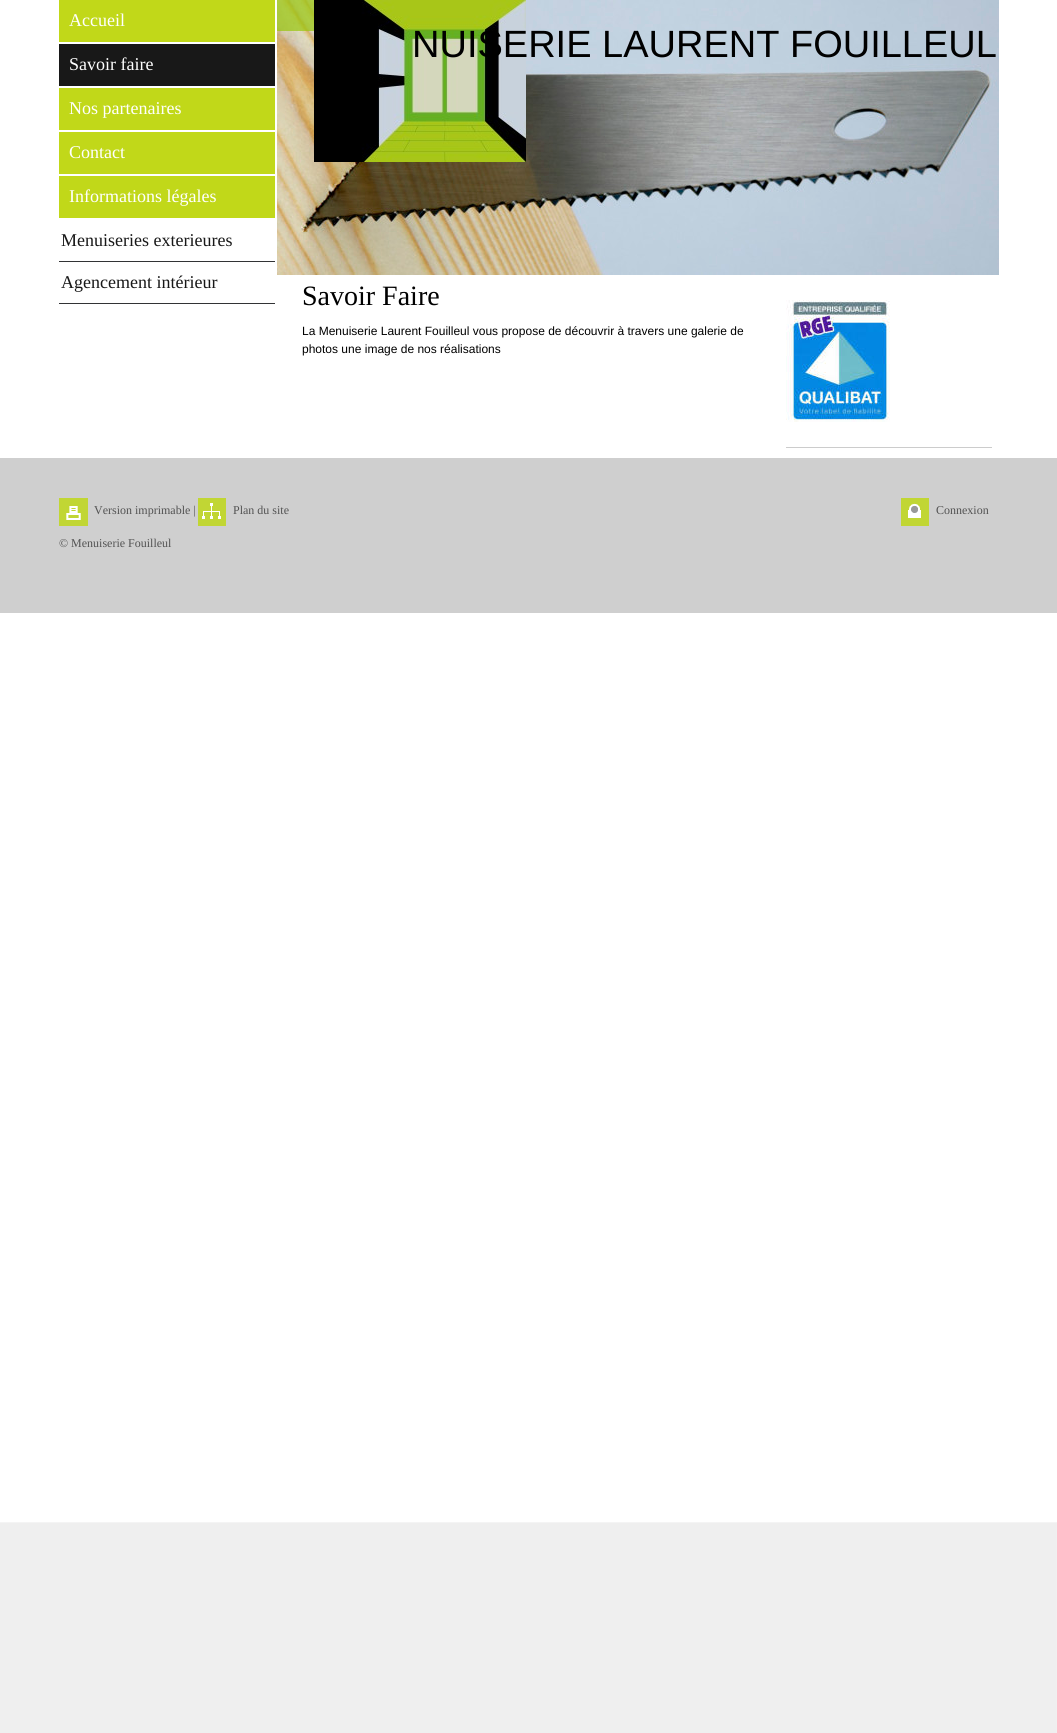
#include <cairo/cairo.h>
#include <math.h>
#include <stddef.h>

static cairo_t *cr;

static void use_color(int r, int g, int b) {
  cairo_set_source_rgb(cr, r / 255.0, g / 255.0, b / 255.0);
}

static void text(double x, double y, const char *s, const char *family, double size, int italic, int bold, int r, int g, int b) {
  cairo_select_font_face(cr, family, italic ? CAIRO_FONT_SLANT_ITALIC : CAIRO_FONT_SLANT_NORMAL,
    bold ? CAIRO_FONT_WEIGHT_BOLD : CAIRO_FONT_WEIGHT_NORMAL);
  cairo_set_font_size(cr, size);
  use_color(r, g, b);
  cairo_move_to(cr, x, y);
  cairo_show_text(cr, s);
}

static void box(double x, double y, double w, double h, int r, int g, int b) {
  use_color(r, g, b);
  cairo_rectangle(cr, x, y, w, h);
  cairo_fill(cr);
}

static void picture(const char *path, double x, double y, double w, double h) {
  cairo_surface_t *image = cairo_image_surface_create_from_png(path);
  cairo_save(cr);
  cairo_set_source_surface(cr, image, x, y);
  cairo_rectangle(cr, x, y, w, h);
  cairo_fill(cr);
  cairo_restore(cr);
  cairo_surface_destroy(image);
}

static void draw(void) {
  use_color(255, 255, 255);
  cairo_paint(cr);
  picture("img_01.png", 0, 1522, 1057, 211);
  box(59, 0, 216, 42, 193, 216, 25);
  box(59, 44, 216, 42, 24, 24, 24);
  box(59, 88, 216, 42, 193, 216, 25);
  box(59, 132, 216, 42, 193, 216, 25);
  box(59, 176, 216, 42, 193, 216, 25);
  box(59, 261, 216, 1, 50, 51, 53);
  box(59, 303, 216, 1, 50, 51, 53);
  picture("img_02.png", 277, 0, 722, 275);
  cairo_set_source_rgba(cr, 0.588, 0.776, 0.024, 0.68);
  cairo_rectangle(cr, 277, 0, 37, 31);
  cairo_fill(cr);
  picture("img_03.png", 314, 0, 212, 162);
  picture("img_04.png", 786, 300, 104, 122);
  box(786, 447, 206, 1, 204, 204, 204);
  box(0, 458, 1057, 155, 207, 207, 207);
  picture("img_05.png", 59, 498, 29, 28);
  picture("img_06.png", 198, 498, 28, 28);
  picture("img_07.png", 901, 498, 28, 28);
  text(69, 26, "Accueil", "Liberation Serif", 18, 0, 0, 255, 255, 255);
  text(69, 70, "Savoir faire", "Liberation Serif", 18, 0, 0, 255, 255, 255);
  text(69, 114, "Nos partenaires", "Liberation Serif", 18, 0, 0, 255, 255, 255);
  text(69, 158, "Contact", "Liberation Serif", 18, 0, 0, 255, 255, 255);
  text(69, 202, "Informations légales", "Liberation Serif", 18, 0, 0, 255, 255, 255);
  text(61, 246, "Menuiseries exterieures", "Liberation Serif", 18, 0, 0, 24, 24, 24);
  text(61, 288, "Agencement intérieur", "Liberation Serif", 18, 0, 0, 24, 24, 24);
  text(412, 57, "NUISERIE LAURENT FOUILLEUL", "Liberation Sans", 38, 0, 0, 0, 0, 0);
  text(302, 305, "Savoir Faire", "Liberation Serif", 28, 0, 0, 0, 0, 0);
  text(302, 335, "La Menuiserie Laurent Fouilleul vous propose de découvrir à travers une galerie de", "Liberation Sans", 12, 0, 0, 0, 0, 0);
  text(302, 353, "photos une image de nos réalisations", "Liberation Sans", 12, 0, 0, 0, 0, 0);
  text(94, 514, "Version imprimable |", "Liberation Serif", 12, 0, 0, 82, 82, 82);
  text(233, 514, "Plan du site", "Liberation Serif", 12, 0, 0, 82, 82, 82);
  text(59, 547, "© Menuiserie Fouilleul", "Liberation Serif", 12, 0, 0, 82, 82, 82);
  text(936, 514, "Connexion", "Liberation Serif", 12, 0, 0, 82, 82, 82);
}

int main(void) {
  cairo_surface_t *surface = cairo_image_surface_create(CAIRO_FORMAT_RGB24, 1057, 1733);
  cr = cairo_create(surface);
  cairo_font_options_t *options = cairo_font_options_create();
  cairo_font_options_set_hint_metrics(options, CAIRO_HINT_METRICS_OFF);
  cairo_font_options_set_hint_style(options, CAIRO_HINT_STYLE_NONE);
  cairo_set_font_options(cr, options);
  cairo_set_miter_limit(cr, 4);
  draw();
  cairo_surface_write_to_png(surface, "out.png");
  cairo_font_options_destroy(options);
  cairo_destroy(cr);
  cairo_surface_destroy(surface);
  return 0;
}
